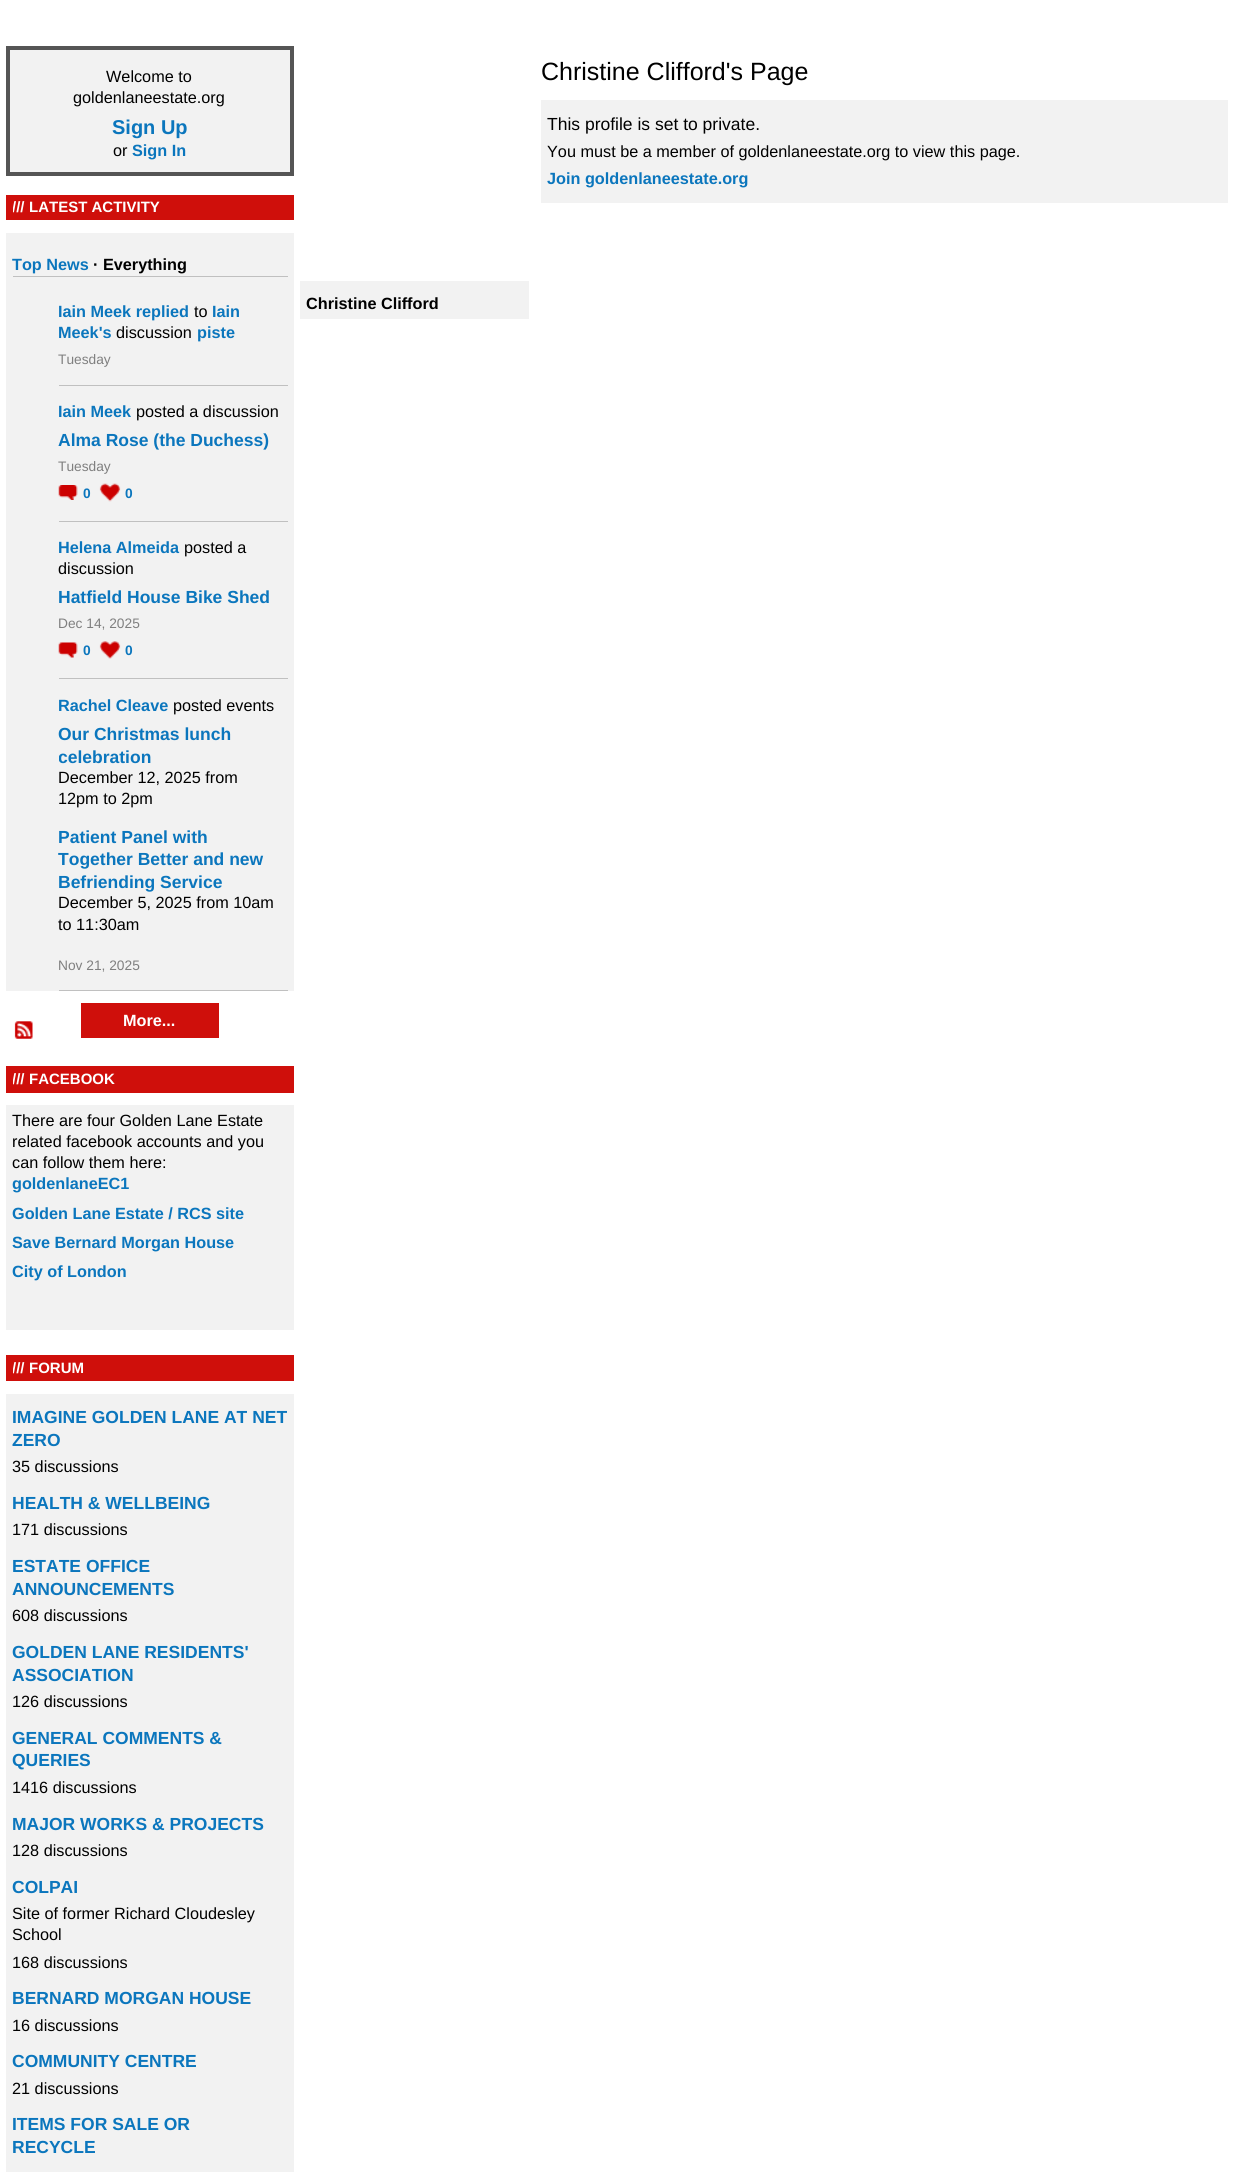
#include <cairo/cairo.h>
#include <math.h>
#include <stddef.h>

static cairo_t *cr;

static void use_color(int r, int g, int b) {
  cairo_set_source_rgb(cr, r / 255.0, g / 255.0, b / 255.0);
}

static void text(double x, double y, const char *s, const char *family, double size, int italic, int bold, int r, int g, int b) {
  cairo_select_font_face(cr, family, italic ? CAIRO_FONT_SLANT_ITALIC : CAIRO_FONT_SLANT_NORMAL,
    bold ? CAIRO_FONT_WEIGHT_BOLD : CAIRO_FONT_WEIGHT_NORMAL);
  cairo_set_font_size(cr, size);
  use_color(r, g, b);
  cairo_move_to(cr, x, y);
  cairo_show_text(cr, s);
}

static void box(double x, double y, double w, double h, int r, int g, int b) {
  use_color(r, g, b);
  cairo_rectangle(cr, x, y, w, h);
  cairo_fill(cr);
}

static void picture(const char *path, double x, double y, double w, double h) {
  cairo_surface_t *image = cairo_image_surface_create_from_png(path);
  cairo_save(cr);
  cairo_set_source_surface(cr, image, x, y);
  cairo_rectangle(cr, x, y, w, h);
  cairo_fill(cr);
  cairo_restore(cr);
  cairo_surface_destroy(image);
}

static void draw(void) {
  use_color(255, 255, 255);
  cairo_paint(cr);
  use_color(242, 242, 242);
  cairo_rectangle(cr, 8, 48, 284, 126);
  cairo_fill_preserve(cr);
  use_color(85, 85, 85);
  cairo_set_line_width(cr, 4);
  cairo_stroke(cr);
  box(6, 195, 288, 25, 207, 15, 11);
  box(6, 233, 288, 758, 242, 242, 242);
  box(13, 276, 275, 1, 192, 192, 192);
  box(59, 385, 229, 1, 192, 192, 192);
  box(59, 521, 229, 1, 192, 192, 192);
  picture("img_01.png", 58, 485, 20, 15);
  picture("img_02.png", 99, 483, 22, 19);
  box(59, 678, 229, 1, 192, 192, 192);
  picture("img_03.png", 58, 642, 20, 16);
  picture("img_04.png", 99, 641, 22, 18);
  box(59, 990, 229, 1, 192, 192, 192);
  picture("img_05.png", 14, 1021, 19, 18);
  box(81, 1003, 138, 35, 207, 15, 11);
  box(6, 1066, 288, 27, 207, 15, 11);
  box(6, 1105, 288, 225, 242, 242, 242);
  box(6, 1355, 288, 26, 207, 15, 11);
  box(6, 1394, 288, 778, 242, 242, 242);
  box(541, 100, 687, 103, 242, 242, 242);
  box(300, 281, 229, 38, 242, 242, 242);
  text(106, 82, "Welcome to", "Liberation Sans", 16.25, 0, 0, 0, 0, 0);
  text(73, 103, "goldenlaneestate.org", "Liberation Sans", 16.25, 0, 0, 0, 0, 0);
  text(112, 134, "Sign Up", "Liberation Sans", 20, 0, 1, 11, 118, 189);
  text(113, 156, "or", "Liberation Sans", 16.25, 0, 0, 0, 0, 0);
  text(132, 156, "Sign In", "Liberation Sans", 16.25, 0, 1, 11, 118, 189);
  cairo_save(cr);
  cairo_rectangle(cr, 13, 199, 147, 17);
  cairo_clip(cr);
  text(12, 212, "///", "Liberation Sans", 15, 0, 1, 255, 255, 255);
  cairo_restore(cr);
  text(29, 212, "LATEST ACTIVITY", "Liberation Sans", 15, 0, 1, 255, 255, 255);
  text(12, 270, "Top News", "Liberation Sans", 16.25, 0, 1, 11, 118, 189);
  text(93, 270, "· Everything", "Liberation Sans", 16.25, 0, 1, 0, 0, 0);
  text(58, 317, "Iain Meek replied", "Liberation Sans", 16.25, 0, 1, 11, 118, 189);
  text(194, 317, "to", "Liberation Sans", 16.25, 0, 0, 0, 0, 0);
  text(212, 317, "Iain", "Liberation Sans", 16.25, 0, 1, 11, 118, 189);
  text(58, 338, "Meek's", "Liberation Sans", 16.25, 0, 1, 11, 118, 189);
  text(116, 338, "discussion", "Liberation Sans", 16.25, 0, 0, 0, 0, 0);
  text(197, 338, "piste", "Liberation Sans", 16.25, 0, 1, 11, 118, 189);
  text(58, 364, "Tuesday", "Liberation Sans", 13.75, 0, 0, 127, 127, 127);
  text(58, 417, "Iain Meek", "Liberation Sans", 16.25, 0, 1, 11, 118, 189);
  text(136, 417, "posted a discussion", "Liberation Sans", 16.25, 0, 0, 0, 0, 0);
  text(58, 446, "Alma Rose (the Duchess)", "Liberation Sans", 17.5, 0, 1, 11, 118, 189);
  text(58, 471, "Tuesday", "Liberation Sans", 13.75, 0, 0, 127, 127, 127);
  text(83, 498, "0", "Liberation Sans", 13.75, 0, 1, 11, 118, 189);
  text(125, 498, "0", "Liberation Sans", 13.75, 0, 1, 11, 118, 189);
  text(58, 553, "Helena Almeida", "Liberation Sans", 16.25, 0, 1, 11, 118, 189);
  text(184, 553, "posted a", "Liberation Sans", 16.25, 0, 0, 0, 0, 0);
  text(58, 574, "discussion", "Liberation Sans", 16.25, 0, 0, 0, 0, 0);
  text(58, 603, "Hatfield House Bike Shed", "Liberation Sans", 17.5, 0, 1, 11, 118, 189);
  text(58, 628, "Dec 14, 2025", "Liberation Sans", 13.75, 0, 0, 127, 127, 127);
  text(83, 655, "0", "Liberation Sans", 13.75, 0, 1, 11, 118, 189);
  text(125, 655, "0", "Liberation Sans", 13.75, 0, 1, 11, 118, 189);
  text(58, 711, "Rachel Cleave", "Liberation Sans", 16.25, 0, 1, 11, 118, 189);
  text(173, 711, "posted events", "Liberation Sans", 16.25, 0, 0, 0, 0, 0);
  text(58, 740, "Our Christmas lunch", "Liberation Sans", 17.5, 0, 1, 11, 118, 189);
  cairo_save(cr);
  cairo_rectangle(cr, 59, 723, 216, 95);
  cairo_clip(cr);
  text(58, 763, "celebration", "Liberation Sans", 17.5, 0, 1, 11, 118, 189);
  cairo_restore(cr);
  text(58, 783, "December 12, 2025 from", "Liberation Sans", 16.25, 0, 0, 0, 0, 0);
  text(58, 804, "12pm to 2pm", "Liberation Sans", 16.25, 0, 0, 0, 0, 0);
  text(58, 843, "Patient Panel with", "Liberation Sans", 17.5, 0, 1, 11, 118, 189);
  text(58, 865, "Together Better and new", "Liberation Sans", 17.5, 0, 1, 11, 118, 189);
  text(58, 888, "Befriending Service", "Liberation Sans", 17.5, 0, 1, 11, 118, 189);
  text(58, 908, "December 5, 2025 from 10am", "Liberation Sans", 16.25, 0, 0, 0, 0, 0);
  text(58, 930, "to 11:30am", "Liberation Sans", 16.25, 0, 0, 0, 0, 0);
  text(58, 970, "Nov 21, 2025", "Liberation Sans", 13.75, 0, 0, 127, 127, 127);
  text(123, 1026, "More...", "Liberation Sans", 16.25, 0, 1, 255, 255, 255);
  cairo_save(cr);
  cairo_rectangle(cr, 13, 1070, 102, 19);
  cairo_clip(cr);
  text(12, 1084, "///", "Liberation Sans", 15, 0, 1, 255, 255, 255);
  cairo_restore(cr);
  text(29, 1084, "FACEBOOK", "Liberation Sans", 15, 0, 1, 255, 255, 255);
  text(12, 1126, "There are four Golden Lane Estate", "Liberation Sans", 16.25, 0, 0, 0, 0, 0);
  text(12, 1147, "related facebook accounts and you", "Liberation Sans", 16.25, 0, 0, 0, 0, 0);
  text(12, 1168, "can follow them here:", "Liberation Sans", 16.25, 0, 0, 0, 0, 0);
  text(12, 1189, "goldenlaneEC1", "Liberation Sans", 16.25, 0, 1, 11, 118, 189);
  text(12, 1219, "Golden Lane Estate / RCS site", "Liberation Sans", 16.25, 0, 1, 11, 118, 189);
  text(12, 1248, "Save Bernard Morgan House", "Liberation Sans", 16.25, 0, 1, 11, 118, 189);
  text(12, 1277, "City of London", "Liberation Sans", 16.25, 0, 1, 11, 118, 189);
  cairo_save(cr);
  cairo_rectangle(cr, 13, 1359, 71, 19);
  cairo_clip(cr);
  text(12, 1373, "///", "Liberation Sans", 15, 0, 1, 255, 255, 255);
  cairo_restore(cr);
  text(29, 1373, "FORUM", "Liberation Sans", 15, 0, 1, 255, 255, 255);
  text(12, 1423, "IMAGINE GOLDEN LANE AT NET", "Liberation Sans", 17.5, 0, 1, 11, 118, 189);
  text(12, 1446, "ZERO", "Liberation Sans", 17.5, 0, 1, 11, 118, 189);
  text(12, 1472, "35 discussions", "Liberation Sans", 16.25, 0, 0, 0, 0, 0);
  text(12, 1509, "HEALTH & WELLBEING", "Liberation Sans", 17.5, 0, 1, 11, 118, 189);
  text(12, 1535, "171 discussions", "Liberation Sans", 16.25, 0, 0, 0, 0, 0);
  text(12, 1572, "ESTATE OFFICE", "Liberation Sans", 17.5, 0, 1, 11, 118, 189);
  text(12, 1595, "ANNOUNCEMENTS", "Liberation Sans", 17.5, 0, 1, 11, 118, 189);
  text(12, 1621, "608 discussions", "Liberation Sans", 16.25, 0, 0, 0, 0, 0);
  text(12, 1658, "GOLDEN LANE RESIDENTS'", "Liberation Sans", 17.5, 0, 1, 11, 118, 189);
  text(12, 1681, "ASSOCIATION", "Liberation Sans", 17.5, 0, 1, 11, 118, 189);
  text(12, 1707, "126 discussions", "Liberation Sans", 16.25, 0, 0, 0, 0, 0);
  text(12, 1744, "GENERAL COMMENTS &", "Liberation Sans", 17.5, 0, 1, 11, 118, 189);
  text(12, 1766, "QUERIES", "Liberation Sans", 17.5, 0, 1, 11, 118, 189);
  text(12, 1793, "1416 discussions", "Liberation Sans", 16.25, 0, 0, 0, 0, 0);
  text(12, 1830, "MAJOR WORKS & PROJECTS", "Liberation Sans", 17.5, 0, 1, 11, 118, 189);
  text(12, 1856, "128 discussions", "Liberation Sans", 16.25, 0, 0, 0, 0, 0);
  text(12, 1893, "COLPAI", "Liberation Sans", 17.5, 0, 1, 11, 118, 189);
  text(12, 1919, "Site of former Richard Cloudesley", "Liberation Sans", 16.25, 0, 0, 0, 0, 0);
  text(12, 1940, "School", "Liberation Sans", 16.25, 0, 0, 0, 0, 0);
  text(12, 1968, "168 discussions", "Liberation Sans", 16.25, 0, 0, 0, 0, 0);
  text(12, 2004, "BERNARD MORGAN HOUSE", "Liberation Sans", 17.5, 0, 1, 11, 118, 189);
  text(12, 2031, "16 discussions", "Liberation Sans", 16.25, 0, 0, 0, 0, 0);
  text(12, 2067, "COMMUNITY CENTRE", "Liberation Sans", 17.5, 0, 1, 11, 118, 189);
  text(12, 2094, "21 discussions", "Liberation Sans", 16.25, 0, 0, 0, 0, 0);
  text(12, 2130, "ITEMS FOR SALE OR", "Liberation Sans", 17.5, 0, 1, 11, 118, 189);
  text(12, 2153, "RECYCLE", "Liberation Sans", 17.5, 0, 1, 11, 118, 189);
  text(541, 80, "Christine Clifford's Page", "Liberation Sans", 25, 0, 0, 0, 0, 0);
  text(547, 130, "This profile is set to private.", "Liberation Sans", 17.5, 0, 0, 0, 0, 0);
  text(547, 157, "You must be a member of goldenlaneestate.org to view this page.", "Liberation Sans", 16.25, 0, 0, 0, 0, 0);
  text(547, 184, "Join goldenlaneestate.org", "Liberation Sans", 16.25, 0, 1, 11, 118, 189);
  text(306, 309, "Christine Clifford", "Liberation Sans", 16.25, 0, 1, 0, 0, 0);
}

int main(void) {
  cairo_surface_t *surface = cairo_image_surface_create(CAIRO_FORMAT_RGB24, 1238, 2172);
  cr = cairo_create(surface);
  cairo_font_options_t *options = cairo_font_options_create();
  cairo_font_options_set_hint_metrics(options, CAIRO_HINT_METRICS_OFF);
  cairo_font_options_set_hint_style(options, CAIRO_HINT_STYLE_NONE);
  cairo_set_font_options(cr, options);
  cairo_set_miter_limit(cr, 4);
  draw();
  cairo_surface_write_to_png(surface, "out.png");
  cairo_font_options_destroy(options);
  cairo_destroy(cr);
  cairo_surface_destroy(surface);
  return 0;
}
